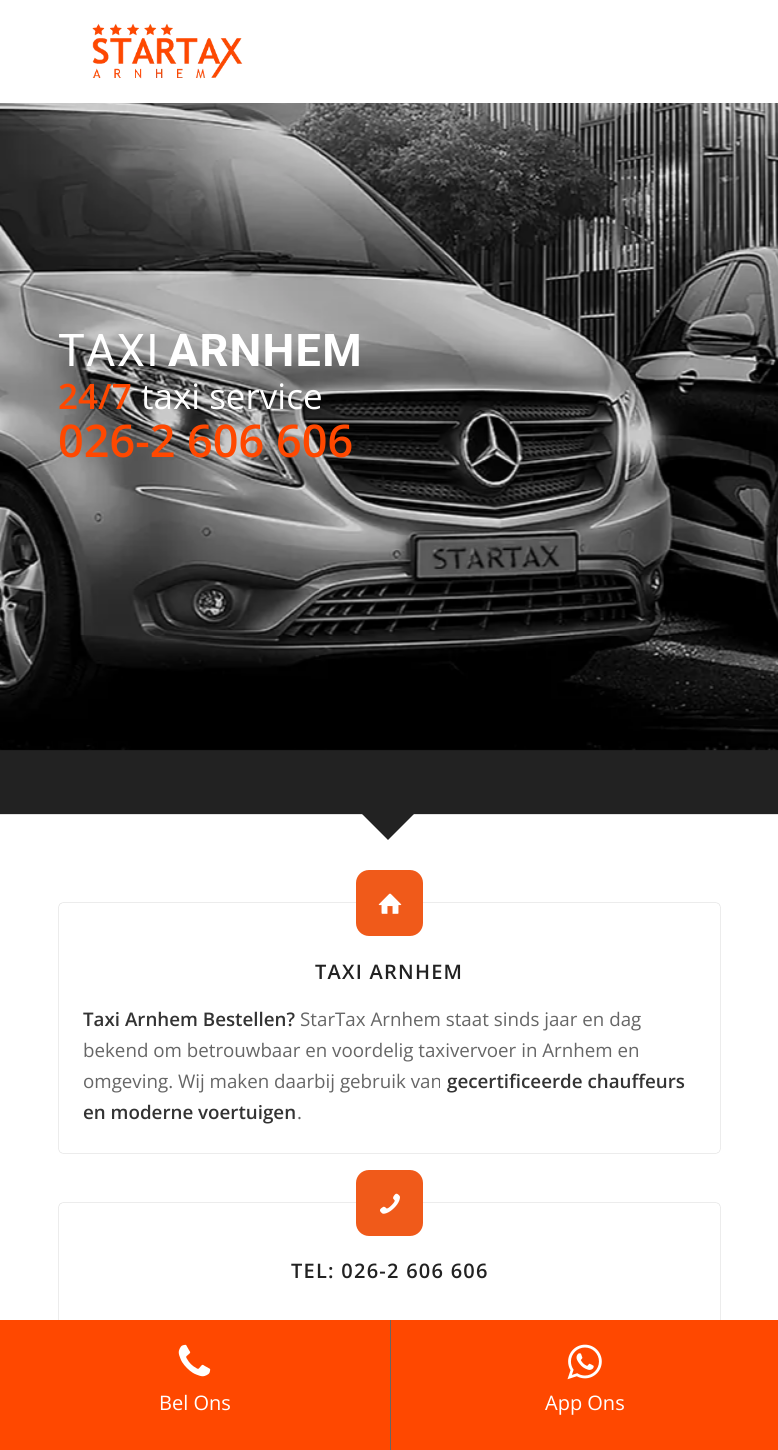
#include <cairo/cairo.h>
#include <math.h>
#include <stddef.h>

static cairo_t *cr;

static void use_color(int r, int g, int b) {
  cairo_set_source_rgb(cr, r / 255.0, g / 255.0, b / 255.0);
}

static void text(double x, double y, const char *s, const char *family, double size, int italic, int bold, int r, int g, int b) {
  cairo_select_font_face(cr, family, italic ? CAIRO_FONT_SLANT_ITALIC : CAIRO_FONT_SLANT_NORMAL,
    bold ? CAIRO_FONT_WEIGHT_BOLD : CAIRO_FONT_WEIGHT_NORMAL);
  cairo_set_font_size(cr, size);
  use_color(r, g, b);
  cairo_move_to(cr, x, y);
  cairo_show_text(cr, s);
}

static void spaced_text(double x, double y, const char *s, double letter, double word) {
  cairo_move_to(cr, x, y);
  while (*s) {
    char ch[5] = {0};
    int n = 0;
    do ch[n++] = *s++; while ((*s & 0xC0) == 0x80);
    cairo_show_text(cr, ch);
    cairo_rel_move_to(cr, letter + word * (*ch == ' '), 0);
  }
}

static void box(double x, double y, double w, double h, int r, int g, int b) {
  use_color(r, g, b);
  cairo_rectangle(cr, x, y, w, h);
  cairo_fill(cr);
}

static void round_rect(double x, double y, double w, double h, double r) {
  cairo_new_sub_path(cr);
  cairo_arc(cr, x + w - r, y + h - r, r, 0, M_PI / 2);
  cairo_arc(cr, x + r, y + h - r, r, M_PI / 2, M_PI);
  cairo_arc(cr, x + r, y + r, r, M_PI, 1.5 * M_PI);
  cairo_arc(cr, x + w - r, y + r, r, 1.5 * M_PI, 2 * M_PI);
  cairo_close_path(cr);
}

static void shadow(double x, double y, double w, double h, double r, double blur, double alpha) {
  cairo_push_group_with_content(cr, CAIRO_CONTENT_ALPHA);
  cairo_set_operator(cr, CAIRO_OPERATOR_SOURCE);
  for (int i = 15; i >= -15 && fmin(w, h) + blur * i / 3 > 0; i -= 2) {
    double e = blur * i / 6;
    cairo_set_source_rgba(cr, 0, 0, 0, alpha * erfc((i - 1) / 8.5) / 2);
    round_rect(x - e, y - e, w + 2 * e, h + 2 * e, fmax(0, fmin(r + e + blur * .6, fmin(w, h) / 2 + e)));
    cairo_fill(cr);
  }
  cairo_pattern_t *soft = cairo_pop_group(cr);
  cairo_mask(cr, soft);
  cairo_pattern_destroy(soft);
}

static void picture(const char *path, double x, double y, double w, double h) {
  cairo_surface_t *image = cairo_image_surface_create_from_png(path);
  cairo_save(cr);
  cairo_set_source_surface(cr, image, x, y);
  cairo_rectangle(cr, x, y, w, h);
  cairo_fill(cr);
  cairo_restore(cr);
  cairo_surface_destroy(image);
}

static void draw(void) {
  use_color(255, 255, 255);
  cairo_paint(cr);
  picture("img_01.png", 92, 23, 151, 56);
  box(0, 749, 778, 65, 34, 34, 34);
  picture("img_02.png", 0, 103, 778, 648);
  box(0, 814, 778, 1, 225, 225, 225);
  cairo_save(cr);
  cairo_rectangle(cr, 358, 814, 62, 31);
  cairo_clip(cr);
  use_color(34, 34, 34);
  cairo_new_path(cr);
  cairo_move_to(cr, 388, 752);
  cairo_line_to(cr, 432, 796);
  cairo_line_to(cr, 388, 840);
  cairo_line_to(cr, 344, 796);
  cairo_close_path(cr);
  cairo_fill(cr);
  cairo_restore(cr);
  use_color(0, 0, 0);
  shadow(59, 903, 661, 250, 4, 0.5, 0.3);
  use_color(255, 255, 255);
  round_rect(59, 903, 661, 250, 4);
  cairo_fill(cr);
  use_color(240, 90, 26);
  round_rect(356, 870, 67, 66, 13);
  cairo_fill(cr);
  picture("img_03.png", 378, 893, 24, 21);
  use_color(0, 0, 0);
  shadow(59, 1203, 661, 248, 4, 0.5, 0.3);
  use_color(255, 255, 255);
  round_rect(59, 1203, 661, 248, 4);
  cairo_fill(cr);
  use_color(240, 90, 26);
  round_rect(356, 1170, 67, 66, 13);
  cairo_fill(cr);
  picture("img_04.png", 380, 1193, 20, 21);
  box(0, 1320, 778, 130, 255, 72, 0);
  picture("img_05.png", 178, 1344, 33, 33);
  box(390, 1320, 1, 130, 102, 102, 102);
  picture("img_06.png", 567, 1344, 35, 36);
  cairo_select_font_face(cr, "Roboto", CAIRO_FONT_SLANT_NORMAL, CAIRO_FONT_WEIGHT_NORMAL);
  cairo_set_font_size(cr, 45);
  use_color(255, 255, 255);
  spaced_text(58, 366, "TAXI", 1.25, 0);
  cairo_select_font_face(cr, "Roboto", CAIRO_FONT_SLANT_NORMAL, CAIRO_FONT_WEIGHT_BOLD);
  spaced_text(168, 366, "ARNHEM", 1.25, 0);
  text(58, 409, "24/7", "Open Sans SemiBold", 35, 0, 0, 255, 72, 0);
  text(141, 409, "taxi service", "Open Sans", 35, 0, 0, 255, 255, 255);
  text(58, 457, "026-2 606 606", "Open Sans SemiBold", 45, 0, 0, 255, 72, 0);
  cairo_set_font_size(cr, 20);
  use_color(34, 34, 34);
  spaced_text(315, 979, "TAXI ARNHEM", 1.25, 0);
  text(83, 1026, "Taxi Arnhem Bestellen?", "Open Sans SemiBold", 18.75, 0, 0, 51, 51, 51);
  text(300, 1026, "StarTax Arnhem staat sinds jaar en dag", "Open Sans", 18.75, 0, 0, 102, 102, 102);
  text(83, 1057, "bekend om betrouwbaar en voordelig taxivervoer in Arnhem en", "Open Sans", 18.75, 0, 0, 102, 102, 102);
  text(83, 1088, "omgeving. Wij maken daarbij gebruik van", "Open Sans", 18.75, 0, 0, 102, 102, 102);
  text(447, 1088, "gecertificeerde chauffeurs", "Open Sans SemiBold", 18.75, 0, 0, 51, 51, 51);
  text(83, 1119, "en moderne voertuigen", "Open Sans SemiBold", 18.75, 0, 0, 51, 51, 51);
  text(297, 1119, ".", "Open Sans", 18.75, 0, 0, 102, 102, 102);
  cairo_select_font_face(cr, "Open Sans SemiBold", CAIRO_FONT_SLANT_NORMAL, CAIRO_FONT_WEIGHT_NORMAL);
  cairo_set_font_size(cr, 20);
  use_color(34, 34, 34);
  spaced_text(291, 1278, "TEL: 026-2 606 606", 1.25, 0);
  text(159, 1410, "Bel Ons", "Open Sans", 20, 0, 0, 255, 255, 255);
  text(545, 1410, "App Ons", "Open Sans", 20, 0, 0, 255, 255, 255);
}

int main(void) {
  cairo_surface_t *surface = cairo_image_surface_create(CAIRO_FORMAT_RGB24, 778, 1450);
  cr = cairo_create(surface);
  cairo_font_options_t *options = cairo_font_options_create();
  cairo_font_options_set_hint_metrics(options, CAIRO_HINT_METRICS_OFF);
  cairo_font_options_set_hint_style(options, CAIRO_HINT_STYLE_NONE);
  cairo_set_font_options(cr, options);
  cairo_set_miter_limit(cr, 4);
  draw();
  cairo_surface_write_to_png(surface, "out.png");
  cairo_font_options_destroy(options);
  cairo_destroy(cr);
  cairo_surface_destroy(surface);
  return 0;
}
